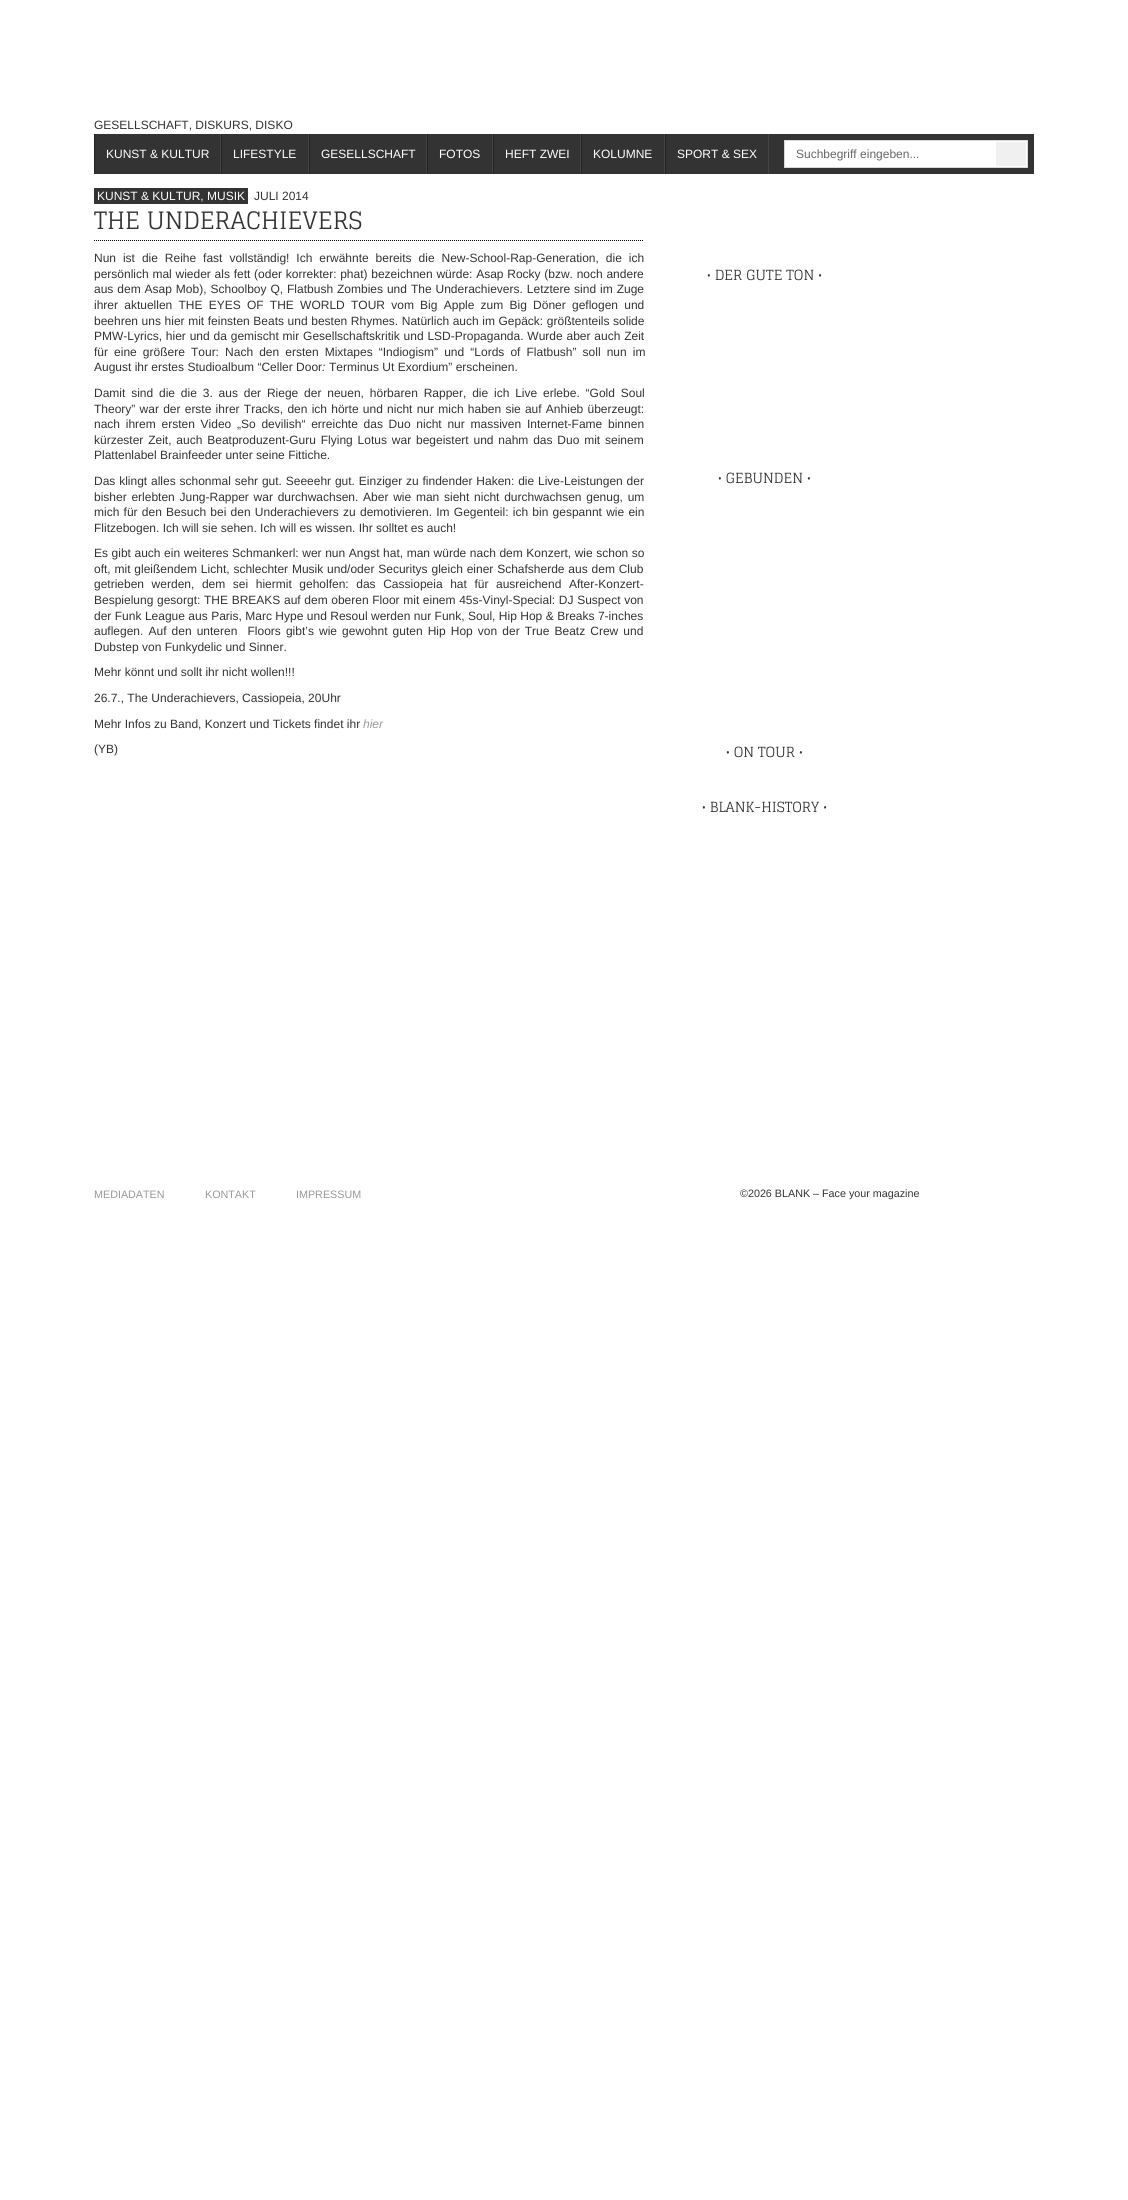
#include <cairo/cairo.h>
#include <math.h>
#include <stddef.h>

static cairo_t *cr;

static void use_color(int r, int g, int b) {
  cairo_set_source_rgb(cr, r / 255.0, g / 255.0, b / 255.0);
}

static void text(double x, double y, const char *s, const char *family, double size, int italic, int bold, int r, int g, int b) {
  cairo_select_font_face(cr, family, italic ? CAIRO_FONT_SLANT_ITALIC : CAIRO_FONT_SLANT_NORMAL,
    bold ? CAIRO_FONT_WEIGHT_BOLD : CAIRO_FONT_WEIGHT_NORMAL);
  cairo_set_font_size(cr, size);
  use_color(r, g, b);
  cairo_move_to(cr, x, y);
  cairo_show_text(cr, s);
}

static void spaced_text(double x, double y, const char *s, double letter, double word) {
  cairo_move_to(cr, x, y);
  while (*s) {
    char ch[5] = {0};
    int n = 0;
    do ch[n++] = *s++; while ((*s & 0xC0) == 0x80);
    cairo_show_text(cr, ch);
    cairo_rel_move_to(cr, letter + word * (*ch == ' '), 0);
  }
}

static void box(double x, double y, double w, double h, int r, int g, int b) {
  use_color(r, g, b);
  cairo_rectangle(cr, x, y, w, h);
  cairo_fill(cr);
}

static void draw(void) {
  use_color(255, 255, 255);
  cairo_paint(cr);
  box(95, 134, 939, 40, 51, 51, 51);
  box(220, 134, 1, 40, 68, 68, 68);
  box(94, 134, 1, 40, 34, 34, 34);
  box(308, 134, 1, 40, 68, 68, 68);
  box(221, 134, 1, 40, 34, 34, 34);
  box(426, 134, 1, 40, 68, 68, 68);
  box(309, 134, 1, 40, 34, 34, 34);
  box(492, 134, 1, 40, 68, 68, 68);
  box(427, 134, 1, 40, 34, 34, 34);
  box(580, 134, 1, 40, 68, 68, 68);
  box(493, 134, 1, 40, 34, 34, 34);
  box(664, 134, 1, 40, 68, 68, 68);
  box(581, 134, 1, 40, 34, 34, 34);
  box(768, 134, 1, 40, 68, 68, 68);
  box(665, 134, 1, 40, 34, 34, 34);
  use_color(255, 255, 255);
  cairo_rectangle(cr, 784.5, 140.5, 243, 27);
  cairo_fill_preserve(cr);
  use_color(216, 216, 216);
  cairo_set_line_width(cr, 1);
  cairo_stroke(cr);
  box(996, 142, 30, 24, 240, 240, 240);
  box(94, 188, 154, 16, 51, 51, 51);
  cairo_new_path(cr);
  cairo_move_to(cr, 94, 240.5);
  cairo_line_to(cr, 644, 240.5);
  use_color(0, 0, 0);
  cairo_set_dash(cr, (double[]){1, 1}, 2, 0);
  cairo_stroke(cr);
  text(94, 129, "GESELLSCHAFT, DISKURS, DISKO", "Liberation Sans", 12, 0, 0, 51, 51, 51);
  text(106, 158, "KUNST & KULTUR", "Liberation Sans", 12, 0, 0, 255, 255, 255);
  text(233, 158, "LIFESTYLE", "Liberation Sans", 12, 0, 0, 255, 255, 255);
  text(321, 158, "GESELLSCHAFT", "Liberation Sans", 12, 0, 0, 255, 255, 255);
  text(439, 158, "FOTOS", "Liberation Sans", 12, 0, 0, 255, 255, 255);
  text(505, 158, "HEFT ZWEI", "Liberation Sans", 12, 0, 0, 255, 255, 255);
  text(593, 158, "KOLUMNE", "Liberation Sans", 12, 0, 0, 255, 255, 255);
  text(677, 158, "SPORT & SEX", "Liberation Sans", 12, 0, 0, 255, 255, 255);
  text(796, 158, "Suchbegriff eingeben...", "Liberation Sans", 12, 0, 0, 102, 102, 102);
  text(97, 200, "KUNST & KULTUR, MUSIK", "Liberation Sans", 12, 0, 0, 255, 255, 255);
  text(254, 200, "JULI 2014", "Liberation Sans", 12, 0, 0, 51, 51, 51);
  text(94, 229, "THE UNDERACHIEVERS", "Glegoo", 24, 0, 0, 51, 51, 51);
  cairo_select_font_face(cr, "Liberation Sans", CAIRO_FONT_SLANT_NORMAL, CAIRO_FONT_WEIGHT_NORMAL);
  cairo_set_font_size(cr, 12);
  spaced_text(94, 262, "Nun ist die Reihe fast vollständig! Ich erwähnte bereits die New-School-Rap-Generation, die ich", 0, 3.6);
  spaced_text(94, 278, "persönlich mal wieder als fett (oder korrekter: phat) bezeichnen würde: Asap Rocky (bzw. noch andere", 0, 0.4);
  spaced_text(94, 293, "aus dem Asap Mob), Schoolboy Q, Flatbush Zombies und The Underachievers. Letztere sind im Zuge", 0, 0.6);
  spaced_text(94, 309, "ihrer aktuellen THE EYES OF THE WORLD TOUR vom Big Apple zum Big Döner geflogen und", 0, 2.9);
  spaced_text(94, 325, "beehren uns hier mit feinsten Beats und besten Rhymes. Natürlich auch im Gepäck: größtenteils solide", 0, 0.25);
  spaced_text(94, 340, "PMW-Lyrics, hier und da gemischt mir Gesellschaftskritik und LSD-Propaganda. Wurde aber auch Zeit", 0, 0.5);
  spaced_text(94, 356, "für eine größere Tour: Nach den ersten Mixtapes “Indiogism” und “Lords of Flatbush” soll nun im", 0, 2.75);
  text(94, 371, "August ihr erstes Studioalbum “Celler Door", "Liberation Sans", 12, 0, 0, 51, 51, 51);
  text(322, 371, ":", "Liberation Sans", 12, 1, 0, 51, 51, 51);
  text(329, 371, "Terminus Ut Exordium” erscheinen.", "Liberation Sans", 12, 0, 0, 51, 51, 51);
  spaced_text(94, 397, "Damit sind die die 3. aus der Riege der neuen, hörbaren Rapper, die ich Live erlebe. “Gold Soul", 0, 2.5);
  spaced_text(94, 413, "Theory” war der erste ihrer Tracks, den ich hörte und nicht nur mich haben sie auf Anhieb überzeugt:", 0, 0.9);
  spaced_text(94, 428, "nach ihrem ersten Video „So devilish“ erreichte das Duo nicht nur massiven Internet-Fame binnen", 0, 2.4);
  spaced_text(94, 444, "kürzester Zeit, auch Beatproduzent-Guru Flying Lotus war begeistert und nahm das Duo mit seinem", 0, 1.5);
  text(94, 459, "Plattenlabel Brainfeeder unter seine Fittiche.", "Liberation Sans", 12, 0, 0, 51, 51, 51);
  spaced_text(94, 485, "Das klingt alles schonmal sehr gut. Seeeehr gut. Einziger zu findender Haken: die Live-Leistungen der", 0, 0.5);
  spaced_text(94, 501, "bisher erlebten Jung-Rapper war durchwachsen. Aber wie man sieht nicht durchwachsen genug, um", 0, 1.4);
  spaced_text(94, 516, "mich für den Besuch bei den Underachievers zu demotivieren. Im Gegenteil: ich bin gespannt wie ein", 0, 0.9);
  text(94, 532, "Flitzebogen. Ich will sie sehen. Ich will es wissen. Ihr solltet es auch!", "Liberation Sans", 12, 0, 0, 51, 51, 51);
  spaced_text(94, 557, "Es gibt auch ein weiteres Schmankerl: wer nun Angst hat, man würde nach dem Konzert, wie schon so", 0, 0.25);
  spaced_text(94, 573, "oft, mit gleißendem Licht, schlechter Musik und/oder Securitys gleich einer Schafsherde aus dem Club", 0, 0.5);
  spaced_text(94, 588, "getrieben werden, dem sei hiermit geholfen: das Cassiopeia hat für ausreichend After-Konzert-", 0, 4.25);
  spaced_text(94, 604, "Bespielung gesorgt: THE BREAKS auf dem oberen Floor mit einem 45s-Vinyl-Special: DJ Suspect von", 0, 0.3);
  spaced_text(94, 620, "der Funk League aus Paris, Marc Hype und Resoul werden nur Funk, Soul, Hip Hop & Breaks 7-inches", 0, 0.1);
  spaced_text(94, 635, "auflegen. Auf den unteren  Floors gibt’s wie gewohnt guten Hip Hop von der True Beatz Crew und", 0, 1.75);
  text(94, 651, "Dubstep von Funkydelic und Sinner.", "Liberation Sans", 12, 0, 0, 51, 51, 51);
  text(94, 676, "Mehr könnt und sollt ihr nicht wollen!!!", "Liberation Sans", 12, 0, 0, 51, 51, 51);
  text(94, 702, "26.7., The Underachievers, Cassiopeia, 20Uhr", "Liberation Sans", 12, 0, 0, 51, 51, 51);
  text(94, 728, "Mehr Infos zu Band, Konzert und Tickets findet ihr", "Liberation Sans", 12, 0, 0, 51, 51, 51);
  text(363, 728, "hier", "Liberation Sans", 12, 1, 0, 153, 153, 153);
  text(94, 753, "(YB)", "Liberation Sans", 12, 0, 0, 51, 51, 51);
  text(707, 280, "• DER GUTE TON •", "Glegoo", 14, 0, 0, 51, 51, 51);
  text(718, 483, "• GEBUNDEN •", "Glegoo", 14, 0, 0, 51, 51, 51);
  text(726, 757, "• ON TOUR •", "Glegoo", 14, 0, 0, 51, 51, 51);
  text(702, 812, "• BLANK-HISTORY •", "Glegoo", 14, 0, 0, 51, 51, 51);
  text(94, 1198, "MEDIADATEN", "Liberation Sans", 10.75, 0, 0, 153, 153, 153);
  text(205, 1198, "KONTAKT", "Liberation Sans", 10.75, 0, 0, 153, 153, 153);
  text(296, 1198, "IMPRESSUM", "Liberation Sans", 10.75, 0, 0, 153, 153, 153);
  text(740, 1197, "©2026 BLANK – Face your magazine", "Liberation Sans", 10.75, 0, 0, 51, 51, 51);
}

int main(void) {
  cairo_surface_t *surface = cairo_image_surface_create(CAIRO_FORMAT_RGB24, 1128, 2200);
  cr = cairo_create(surface);
  cairo_font_options_t *options = cairo_font_options_create();
  cairo_font_options_set_hint_metrics(options, CAIRO_HINT_METRICS_OFF);
  cairo_font_options_set_hint_style(options, CAIRO_HINT_STYLE_NONE);
  cairo_set_font_options(cr, options);
  cairo_set_miter_limit(cr, 4);
  draw();
  cairo_surface_write_to_png(surface, "out.png");
  cairo_font_options_destroy(options);
  cairo_destroy(cr);
  cairo_surface_destroy(surface);
  return 0;
}
